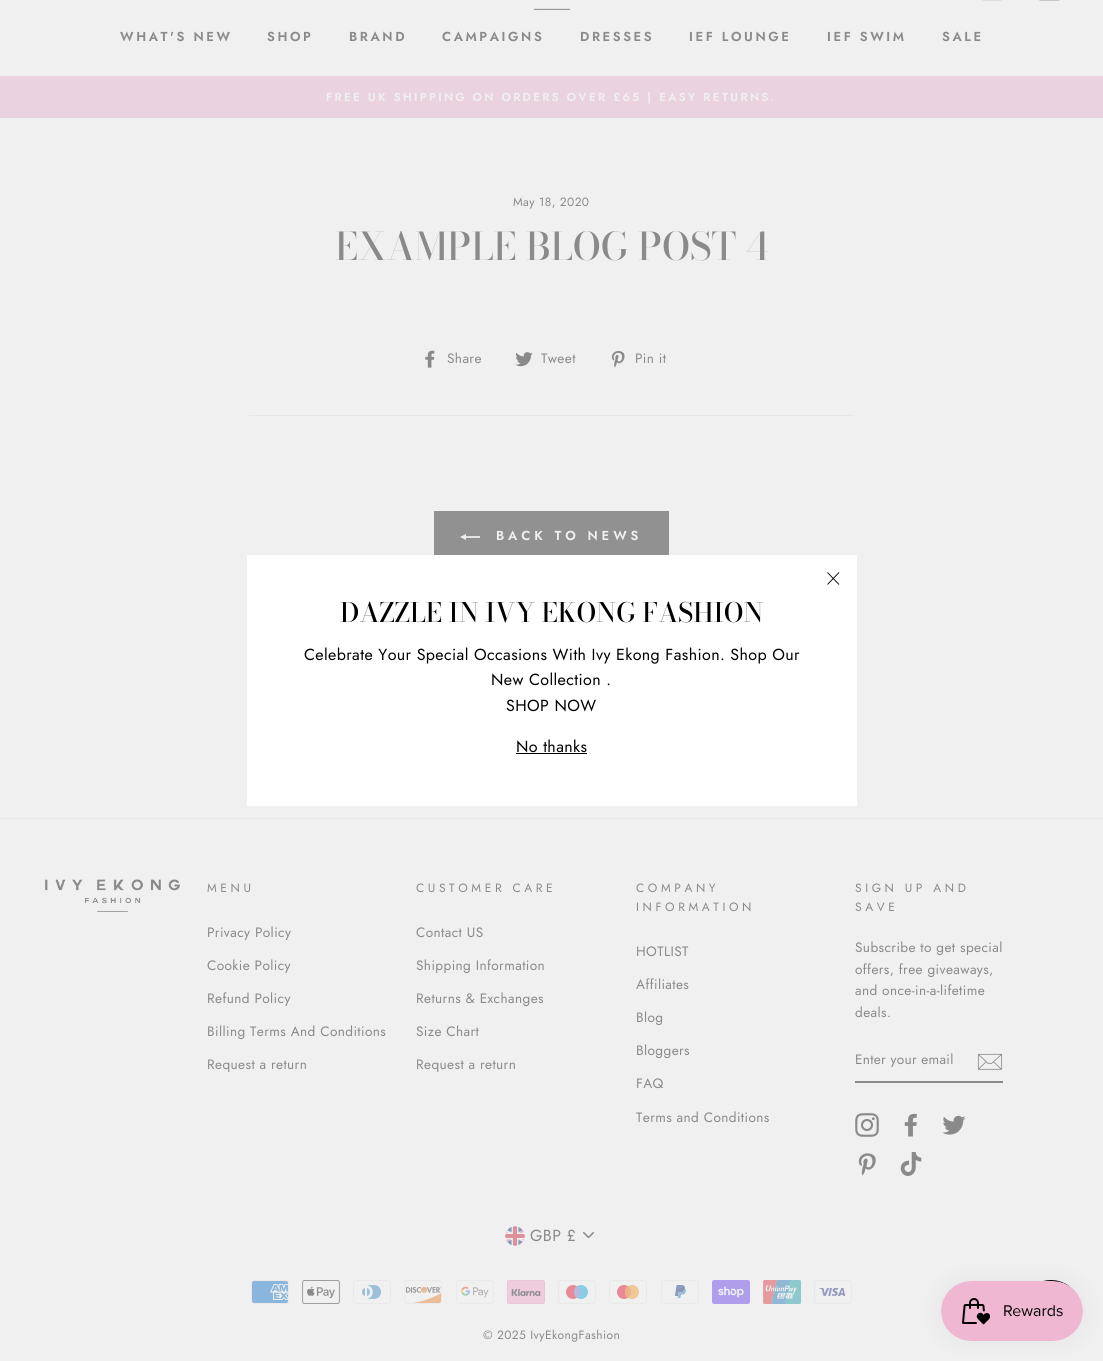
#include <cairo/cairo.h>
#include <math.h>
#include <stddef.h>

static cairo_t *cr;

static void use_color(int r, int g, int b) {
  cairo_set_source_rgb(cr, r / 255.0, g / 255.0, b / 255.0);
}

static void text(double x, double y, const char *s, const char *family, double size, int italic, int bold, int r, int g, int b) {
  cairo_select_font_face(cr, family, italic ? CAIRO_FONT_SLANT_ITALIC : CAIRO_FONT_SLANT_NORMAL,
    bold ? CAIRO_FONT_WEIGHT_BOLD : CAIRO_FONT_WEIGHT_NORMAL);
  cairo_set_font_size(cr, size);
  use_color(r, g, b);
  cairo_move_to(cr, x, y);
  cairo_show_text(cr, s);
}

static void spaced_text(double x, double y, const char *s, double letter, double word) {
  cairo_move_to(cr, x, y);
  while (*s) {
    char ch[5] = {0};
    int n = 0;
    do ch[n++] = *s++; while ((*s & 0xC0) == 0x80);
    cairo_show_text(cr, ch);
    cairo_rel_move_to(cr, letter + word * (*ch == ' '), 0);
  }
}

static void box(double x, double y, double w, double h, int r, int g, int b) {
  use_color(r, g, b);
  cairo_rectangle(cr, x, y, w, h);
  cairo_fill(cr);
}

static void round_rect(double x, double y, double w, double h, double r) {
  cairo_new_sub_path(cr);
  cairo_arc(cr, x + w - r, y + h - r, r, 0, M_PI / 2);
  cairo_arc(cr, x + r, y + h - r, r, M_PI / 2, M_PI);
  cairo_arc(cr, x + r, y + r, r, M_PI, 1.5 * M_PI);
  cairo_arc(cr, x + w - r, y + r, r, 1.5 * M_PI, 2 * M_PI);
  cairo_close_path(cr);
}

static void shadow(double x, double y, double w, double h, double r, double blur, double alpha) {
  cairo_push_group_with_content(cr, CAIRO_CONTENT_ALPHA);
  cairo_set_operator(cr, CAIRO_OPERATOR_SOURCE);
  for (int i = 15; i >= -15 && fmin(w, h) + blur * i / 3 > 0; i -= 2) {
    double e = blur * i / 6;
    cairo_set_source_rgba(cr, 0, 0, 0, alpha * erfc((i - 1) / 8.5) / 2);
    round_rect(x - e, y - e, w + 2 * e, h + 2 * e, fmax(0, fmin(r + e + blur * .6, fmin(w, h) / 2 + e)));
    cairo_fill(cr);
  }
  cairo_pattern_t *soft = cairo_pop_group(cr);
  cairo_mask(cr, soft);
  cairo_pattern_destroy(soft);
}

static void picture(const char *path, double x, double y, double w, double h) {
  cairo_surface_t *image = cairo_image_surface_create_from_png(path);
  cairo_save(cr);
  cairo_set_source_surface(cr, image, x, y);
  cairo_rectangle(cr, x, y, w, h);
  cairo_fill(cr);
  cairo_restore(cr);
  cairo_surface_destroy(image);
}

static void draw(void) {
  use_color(240, 240, 240);
  cairo_paint(cr);
  picture("img_01.png", 982, 0, 20, 1);
  picture("img_02.png", 1039, 0, 21, 1);
  picture("img_03.png", 533, 8, 38, 2);
  box(0, 76, 1103, 42, 234, 211, 222);
  picture("img_04.png", 425, 350, 10, 18);
  picture("img_05.png", 515, 352, 18, 15);
  picture("img_06.png", 611, 351, 14, 17);
  box(249, 415, 605, 1, 231, 231, 228);
  box(434, 511, 235, 44, 145, 145, 145);
  picture("img_07.png", 460, 534, 20, 6);
  box(0, 818, 1103, 1, 231, 231, 228);
  picture("img_08.png", 45, 879, 135, 33);
  box(855, 1081, 148, 2, 138, 138, 138);
  picture("img_09.png", 977, 1053, 26, 17);
  picture("img_10.png", 855, 1113, 24, 24);
  picture("img_11.png", 904, 1113, 13, 24);
  picture("img_12.png", 942, 1115, 24, 20);
  picture("img_13.png", 858, 1153, 18, 23);
  picture("img_14.png", 900, 1152, 22, 24);
  picture("img_15.png", 583, 1232, 11, 6);
  picture("img_16.png", 505, 1226, 20, 20);
  picture("img_17.png", 251, 1280, 38, 24);
  picture("img_18.png", 302, 1280, 38, 24);
  picture("img_19.png", 353, 1280, 38, 24);
  picture("img_20.png", 404, 1280, 38, 24);
  picture("img_21.png", 456, 1280, 38, 24);
  picture("img_22.png", 507, 1280, 38, 24);
  picture("img_23.png", 558, 1280, 38, 24);
  picture("img_24.png", 609, 1280, 38, 24);
  picture("img_25.png", 661, 1280, 38, 24);
  picture("img_26.png", 712, 1280, 38, 24);
  picture("img_27.png", 763, 1280, 38, 24);
  picture("img_28.png", 814, 1280, 38, 24);
  box(247, 555, 610, 251, 255, 255, 255);
  cairo_new_path(cr);
  cairo_move_to(cr, 827.5, 572.5);
  cairo_line_to(cr, 839, 584.5);
  cairo_move_to(cr, 839, 572.5);
  cairo_line_to(cr, 827.5, 584.5);
  use_color(0, 0, 0);
  cairo_set_line_width(cr, 0.9);
  cairo_stroke(cr);
  box(516, 753, 71, 1, 0, 0, 0);
  use_color(11, 11, 11);
  cairo_arc(cr, 1051, 1310, 30, 0, 2 * M_PI);
  cairo_fill(cr);
  use_color(0, 0, 0);
  shadow(941, 1281, 142, 60, 30, 12.5, 0.05);
  picture("img_29.png", 941, 1281, 142, 60);
  cairo_select_font_face(cr, "Jost SemiBold", CAIRO_FONT_SLANT_NORMAL, CAIRO_FONT_WEIGHT_NORMAL);
  cairo_set_font_size(cr, 13);
  use_color(138, 138, 138);
  spaced_text(120, 41, "WHAT'S NEW", 2.6, 0);
  spaced_text(267, 41, "SHOP", 2.6, 0);
  spaced_text(349, 41, "BRAND", 2.6, 0);
  spaced_text(442, 41, "CAMPAIGNS", 2.6, 0);
  spaced_text(580, 41, "DRESSES", 2.6, 0);
  spaced_text(689, 41, "IEF LOUNGE", 2.6, 0);
  spaced_text(827, 41, "IEF SWIM", 2.6, 0);
  spaced_text(942, 41, "SALE", 2.6, 0);
  cairo_set_font_size(cr, 11.55);
  use_color(240, 240, 240);
  spaced_text(326, 101, "FREE UK SHIPPING ON ORDERS OVER £65 | EASY RETURNS.", 2.3, 0);
  cairo_select_font_face(cr, "Jost", CAIRO_FONT_SLANT_NORMAL, CAIRO_FONT_WEIGHT_NORMAL);
  cairo_set_font_size(cr, 12);
  use_color(138, 138, 138);
  spaced_text(513, 206, "May 18, 2020", 0.4, 0);
  text(335, 260, "EXAMPLE BLOG POST 4", "Bodoni Moda Medium", 38, 0, 0, 138, 138, 138);
  cairo_select_font_face(cr, "Jost", CAIRO_FONT_SLANT_NORMAL, CAIRO_FONT_WEIGHT_NORMAL);
  cairo_set_font_size(cr, 13.6);
  spaced_text(447, 363, "Share", 0.4, 0);
  spaced_text(541, 363, "Tweet", 0.4, 0);
  spaced_text(635, 363, "Pin it", 0.4, 0);
  cairo_select_font_face(cr, "Jost SemiBold", CAIRO_FONT_SLANT_NORMAL, CAIRO_FONT_WEIGHT_NORMAL);
  cairo_set_font_size(cr, 13);
  use_color(240, 240, 240);
  spaced_text(496, 540, "BACK TO NEWS", 3.9, 0);
  cairo_select_font_face(cr, "Jost", CAIRO_FONT_SLANT_NORMAL, CAIRO_FONT_WEIGHT_NORMAL);
  cairo_set_font_size(cr, 12);
  use_color(138, 138, 138);
  spaced_text(207, 892, "MENU", 3.6, 0);
  cairo_set_font_size(cr, 13.6);
  spaced_text(207, 937, "Privacy Policy", 0.4, 0);
  spaced_text(207, 970, "Cookie Policy", 0.4, 0);
  spaced_text(207, 1003, "Refund Policy", 0.4, 0);
  spaced_text(207, 1036, "Billing Terms And Conditions", 0.4, 0);
  spaced_text(207, 1069, "Request a return", 0.4, 0);
  cairo_set_font_size(cr, 12);
  spaced_text(416, 892, "CUSTOMER CARE", 3.6, 0);
  cairo_set_font_size(cr, 13.6);
  spaced_text(416, 937, "Contact US", 0.4, 0);
  spaced_text(416, 970, "Shipping Information", 0.4, 0);
  spaced_text(416, 1003, "Returns & Exchanges", 0.4, 0);
  spaced_text(416, 1036, "Size Chart", 0.4, 0);
  spaced_text(416, 1069, "Request a return", 0.4, 0);
  cairo_set_font_size(cr, 12);
  spaced_text(636, 892, "COMPANY", 3.6, 0);
  spaced_text(636, 911, "INFORMATION", 3.6, 0);
  cairo_set_font_size(cr, 13.6);
  spaced_text(636, 956, "HOTLIST", 0.4, 0);
  spaced_text(636, 989, "Affiliates", 0.4, 0);
  spaced_text(636, 1022, "Blog", 0.4, 0);
  spaced_text(636, 1055, "Bloggers", 0.4, 0);
  spaced_text(636, 1088, "FAQ", 0.4, 0);
  spaced_text(636, 1122, "Terms and Conditions", 0.4, 0);
  cairo_set_font_size(cr, 12);
  spaced_text(855, 892, "SIGN UP AND", 3.6, 0);
  spaced_text(855, 911, "SAVE", 3.6, 0);
  cairo_set_font_size(cr, 13.6);
  spaced_text(855, 952, "Subscribe to get special", 0.4, 0);
  spaced_text(855, 974, "offers, free giveaways,", 0.4, 0);
  spaced_text(855, 995, "and once-in-a-lifetime", 0.4, 0);
  spaced_text(855, 1017, "deals.", 0.4, 0);
  spaced_text(855, 1064, "Enter your email", 0.3, 0);
  cairo_set_font_size(cr, 16);
  spaced_text(530, 1241, "GBP £", 0.4, 0);
  cairo_set_font_size(cr, 12);
  spaced_text(483, 1339, "© 2025 IvyEkongFashion", 0.4, 0);
  text(340, 622, "DAZZLE IN IVY EKONG FASHION", "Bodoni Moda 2 Medium", 26.6, 0, 0, 0, 0, 0);
  cairo_select_font_face(cr, "Jost", CAIRO_FONT_SLANT_NORMAL, CAIRO_FONT_WEIGHT_NORMAL);
  cairo_set_font_size(cr, 16);
  spaced_text(304, 660, "Celebrate Your Special Occasions With Ivy Ekong Fashion. Shop Our", 0.4, 0);
  spaced_text(491, 685, "New Collection .", 0.4, 0);
  spaced_text(506, 711, "SHOP NOW", 0.4, 0);
  spaced_text(516, 752, "No thanks", 0.4, 0);
}

int main(void) {
  cairo_surface_t *surface = cairo_image_surface_create(CAIRO_FORMAT_RGB24, 1103, 1361);
  cr = cairo_create(surface);
  cairo_font_options_t *options = cairo_font_options_create();
  cairo_font_options_set_hint_metrics(options, CAIRO_HINT_METRICS_OFF);
  cairo_font_options_set_hint_style(options, CAIRO_HINT_STYLE_NONE);
  cairo_set_font_options(cr, options);
  cairo_set_miter_limit(cr, 4);
  draw();
  cairo_surface_write_to_png(surface, "out.png");
  cairo_font_options_destroy(options);
  cairo_destroy(cr);
  cairo_surface_destroy(surface);
  return 0;
}
